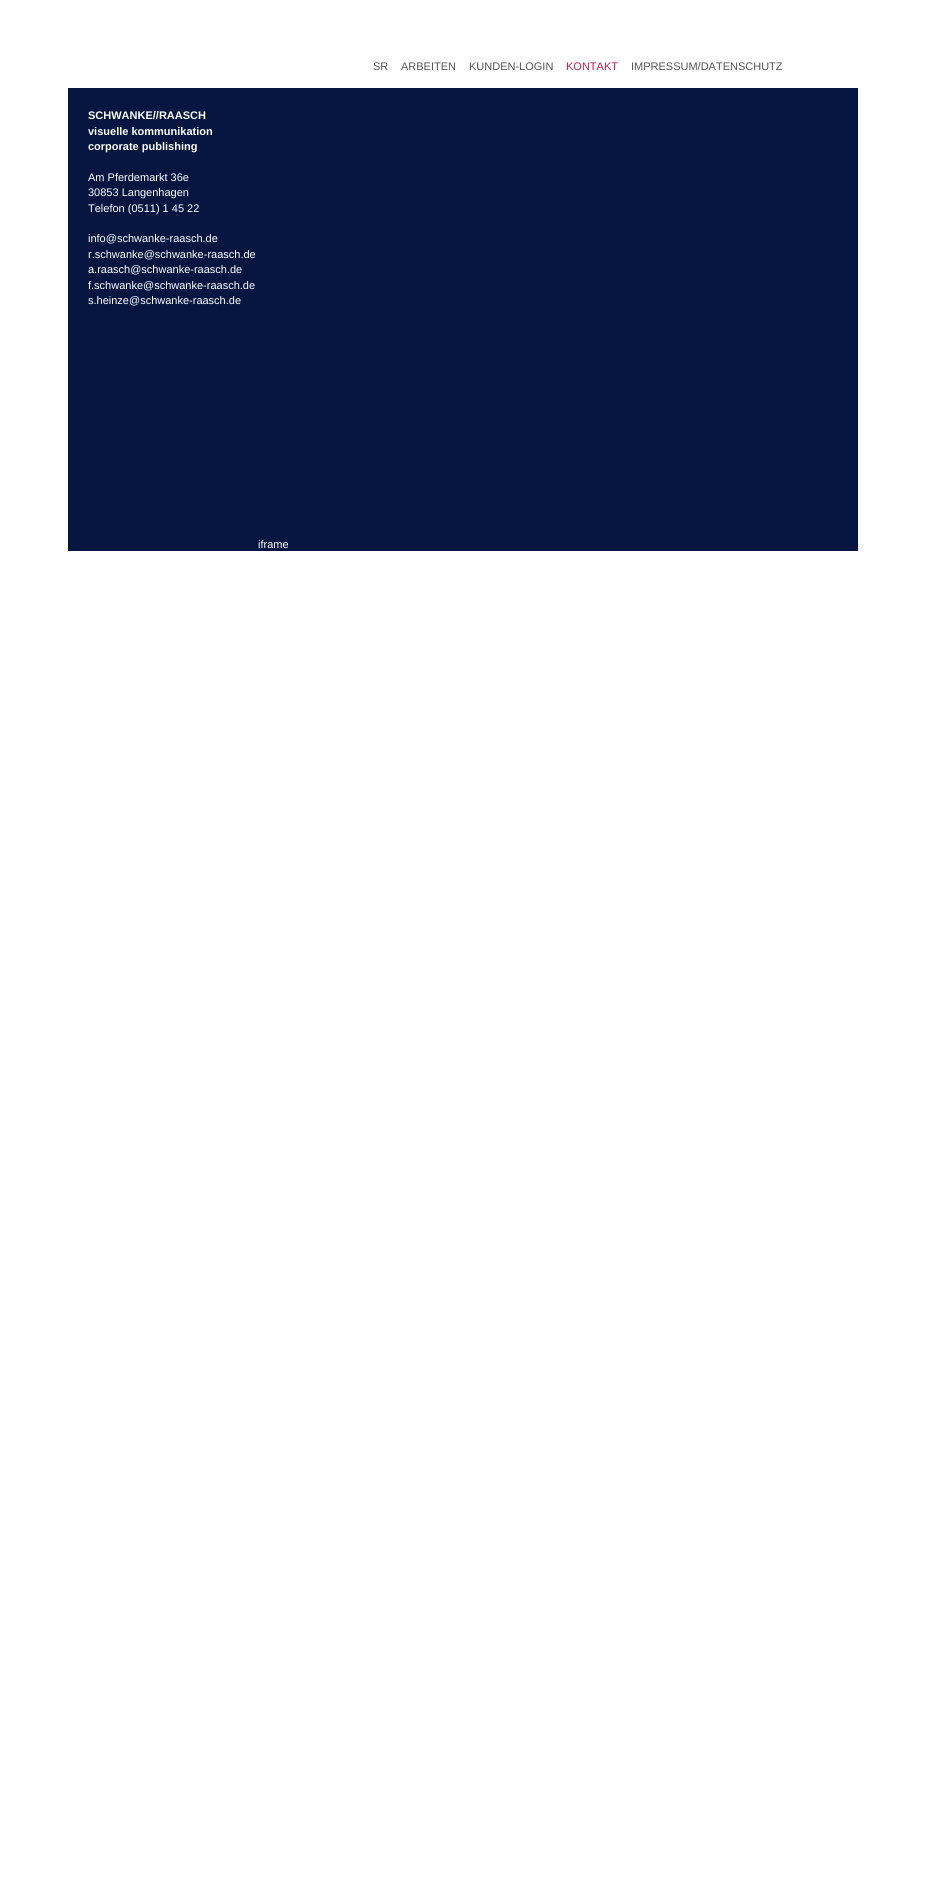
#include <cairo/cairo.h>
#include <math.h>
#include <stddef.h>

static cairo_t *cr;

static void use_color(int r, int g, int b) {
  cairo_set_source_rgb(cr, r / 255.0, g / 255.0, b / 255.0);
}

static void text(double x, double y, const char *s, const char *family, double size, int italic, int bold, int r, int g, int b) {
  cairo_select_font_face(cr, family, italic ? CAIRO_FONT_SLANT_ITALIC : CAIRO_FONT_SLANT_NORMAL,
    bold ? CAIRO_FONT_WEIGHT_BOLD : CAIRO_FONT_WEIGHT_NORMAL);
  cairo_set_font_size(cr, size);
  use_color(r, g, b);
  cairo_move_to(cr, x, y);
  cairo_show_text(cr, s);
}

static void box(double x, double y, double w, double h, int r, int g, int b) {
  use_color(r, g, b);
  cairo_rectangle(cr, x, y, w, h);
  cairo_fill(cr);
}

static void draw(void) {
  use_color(255, 255, 255);
  cairo_paint(cr);
  box(68, 88, 790, 463, 6, 22, 64);
  text(373, 70, "SR", "Liberation Sans", 11, 0, 0, 85, 85, 85);
  text(401, 70, "ARBEITEN", "Liberation Sans", 11, 0, 0, 85, 85, 85);
  text(469, 70, "KUNDEN-LOGIN", "Liberation Sans", 11, 0, 0, 85, 85, 85);
  text(566, 70, "KONTAKT", "Liberation Sans", 11, 0, 0, 185, 32, 91);
  text(631, 70, "IMPRESSUM/DATENSCHUTZ", "Liberation Sans", 11, 0, 0, 85, 85, 85);
  text(88, 119, "SCHWANKE//RAASCH", "Liberation Sans", 11, 0, 1, 255, 255, 255);
  text(88, 135, "visuelle kommunikation", "Liberation Sans", 11, 0, 1, 255, 255, 255);
  text(88, 150, "corporate publishing", "Liberation Sans", 11, 0, 1, 255, 255, 255);
  text(88, 181, "Am Pferdemarkt 36e", "Liberation Sans", 11, 0, 0, 255, 255, 255);
  text(88, 196, "30853 Langenhagen", "Liberation Sans", 11, 0, 0, 255, 255, 255);
  text(88, 212, "Telefon (0511) 1 45 22", "Liberation Sans", 11, 0, 0, 255, 255, 255);
  text(88, 242, "info@schwanke-raasch.de", "Liberation Sans", 11, 0, 0, 255, 255, 255);
  text(88, 258, "r.schwanke@schwanke-raasch.de", "Liberation Sans", 11, 0, 0, 255, 255, 255);
  text(88, 273, "a.raasch@schwanke-raasch.de", "Liberation Sans", 11, 0, 0, 255, 255, 255);
  text(88, 289, "f.schwanke@schwanke-raasch.de", "Liberation Sans", 11, 0, 0, 255, 255, 255);
  text(88, 304, "s.heinze@schwanke-raasch.de", "Liberation Sans", 11, 0, 0, 255, 255, 255);
  text(258, 548, "iframe", "Liberation Sans", 11, 0, 0, 255, 255, 255);
}

int main(void) {
  cairo_surface_t *surface = cairo_image_surface_create(CAIRO_FORMAT_RGB24, 926, 1891);
  cr = cairo_create(surface);
  cairo_font_options_t *options = cairo_font_options_create();
  cairo_font_options_set_hint_metrics(options, CAIRO_HINT_METRICS_OFF);
  cairo_font_options_set_hint_style(options, CAIRO_HINT_STYLE_NONE);
  cairo_set_font_options(cr, options);
  cairo_set_miter_limit(cr, 4);
  draw();
  cairo_surface_write_to_png(surface, "out.png");
  cairo_font_options_destroy(options);
  cairo_destroy(cr);
  cairo_surface_destroy(surface);
  return 0;
}
